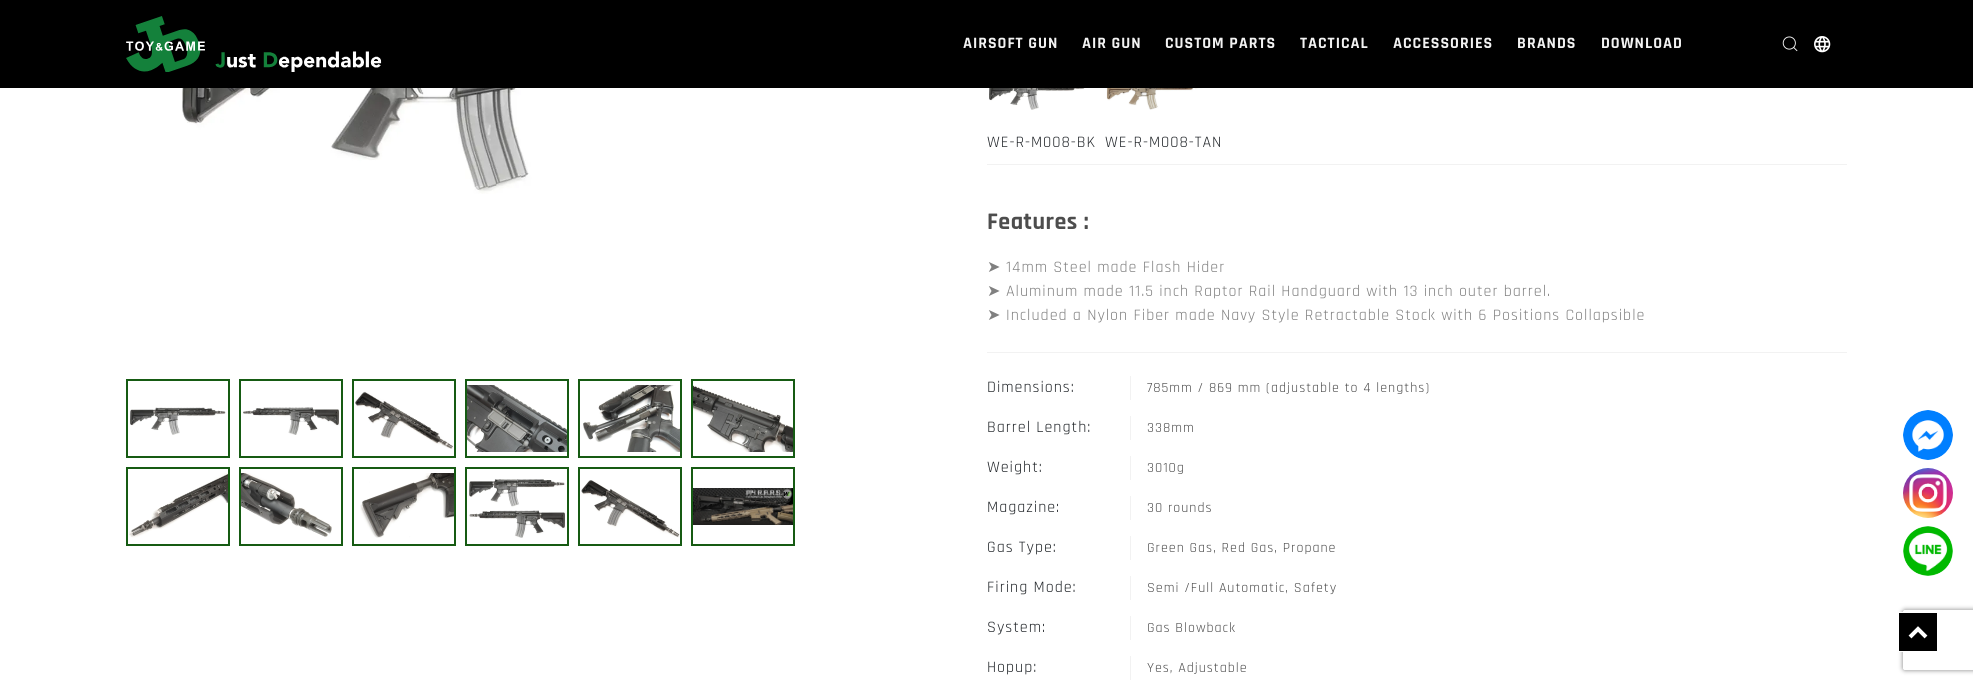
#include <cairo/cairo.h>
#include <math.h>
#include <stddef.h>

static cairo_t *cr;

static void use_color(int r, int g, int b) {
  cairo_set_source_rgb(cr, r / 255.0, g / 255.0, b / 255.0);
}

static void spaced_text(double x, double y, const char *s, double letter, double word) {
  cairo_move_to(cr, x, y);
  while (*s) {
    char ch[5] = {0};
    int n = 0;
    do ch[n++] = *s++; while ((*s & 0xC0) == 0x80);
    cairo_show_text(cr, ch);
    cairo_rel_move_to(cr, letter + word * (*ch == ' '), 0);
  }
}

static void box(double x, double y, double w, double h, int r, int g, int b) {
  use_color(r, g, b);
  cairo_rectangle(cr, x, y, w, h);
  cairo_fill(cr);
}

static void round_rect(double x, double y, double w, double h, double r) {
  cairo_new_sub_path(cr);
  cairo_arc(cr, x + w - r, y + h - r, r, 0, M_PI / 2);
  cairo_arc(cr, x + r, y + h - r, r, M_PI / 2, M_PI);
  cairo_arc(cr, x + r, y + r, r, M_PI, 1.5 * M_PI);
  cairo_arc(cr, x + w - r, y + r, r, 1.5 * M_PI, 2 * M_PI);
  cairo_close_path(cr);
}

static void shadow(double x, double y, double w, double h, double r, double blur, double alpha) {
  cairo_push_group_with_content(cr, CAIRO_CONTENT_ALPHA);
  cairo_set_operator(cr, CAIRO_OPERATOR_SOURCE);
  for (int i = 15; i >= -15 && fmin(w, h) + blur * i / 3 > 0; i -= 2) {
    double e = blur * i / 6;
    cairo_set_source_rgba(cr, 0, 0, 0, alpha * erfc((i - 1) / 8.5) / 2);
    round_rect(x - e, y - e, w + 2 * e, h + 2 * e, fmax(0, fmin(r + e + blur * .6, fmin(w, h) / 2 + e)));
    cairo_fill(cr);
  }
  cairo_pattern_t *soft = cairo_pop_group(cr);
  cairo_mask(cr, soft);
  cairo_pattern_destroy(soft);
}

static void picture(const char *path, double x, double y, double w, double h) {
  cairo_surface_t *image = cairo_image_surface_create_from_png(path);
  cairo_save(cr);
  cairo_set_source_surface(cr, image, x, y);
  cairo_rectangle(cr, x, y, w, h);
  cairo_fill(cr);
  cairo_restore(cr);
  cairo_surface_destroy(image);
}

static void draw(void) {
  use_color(255, 255, 255);
  cairo_paint(cr);
  box(0, 0, 1973, 88, 0, 0, 0);
  picture("img_01.png", 126, 16, 256, 56);
  picture("img_02.png", 1782, 36, 16, 16);
  picture("img_03.png", 1814, 36, 17, 17);
  cairo_save(cr);
  cairo_set_fill_rule(cr, CAIRO_FILL_RULE_EVEN_ODD);
  cairo_new_path(cr);
  cairo_move_to(cr, 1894, 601);
  cairo_line_to(cr, 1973, 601);
  cairo_line_to(cr, 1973, 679);
  cairo_line_to(cr, 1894, 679);
  cairo_close_path(cr);
  cairo_move_to(cr, 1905, 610);
  cairo_line_to(cr, 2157, 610);
  cairo_curve_to(cr, 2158, 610, 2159, 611, 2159, 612);
  cairo_line_to(cr, 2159, 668);
  cairo_curve_to(cr, 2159, 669, 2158, 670, 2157, 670);
  cairo_line_to(cr, 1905, 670);
  cairo_curve_to(cr, 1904, 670, 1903, 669, 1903, 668);
  cairo_line_to(cr, 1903, 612);
  cairo_curve_to(cr, 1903, 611, 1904, 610, 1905, 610);
  cairo_close_path(cr);
  cairo_clip(cr);
  use_color(128, 128, 128);
  shadow(1903, 610, 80, 60, 2, 2.5, 1);
  cairo_restore(cr);
  cairo_rectangle(cr, 1898.5, 612.5, 39, 39);
  cairo_fill_preserve(cr);
  use_color(255, 255, 255);
  cairo_set_line_width(cr, 1);
  cairo_stroke(cr);
  cairo_new_path(cr);
  cairo_move_to(cr, 1910, 637);
  cairo_line_to(cr, 1918, 629);
  cairo_line_to(cr, 1926, 637);
  cairo_set_line_width(cr, 4);
  cairo_stroke(cr);
  picture("img_04.png", 182, 88, 665, 106);
  cairo_rectangle(cr, 127, 380, 102, 77);
  use_color(22, 91, 19);
  cairo_set_line_width(cr, 2);
  cairo_stroke(cr);
  picture("img_05.png", 130, 407, 96, 28);
  cairo_rectangle(cr, 240, 380, 102, 77);
  cairo_stroke(cr);
  picture("img_06.png", 243, 407, 97, 28);
  cairo_rectangle(cr, 353, 380, 102, 77);
  cairo_stroke(cr);
  picture("img_07.png", 355, 391, 98, 58);
  cairo_rectangle(cr, 466, 380, 102, 77);
  cairo_stroke(cr);
  picture("img_08.png", 467, 385, 100, 67);
  cairo_rectangle(cr, 579, 380, 102, 77);
  cairo_stroke(cr);
  picture("img_09.png", 583, 385, 97, 67);
  cairo_rectangle(cr, 692, 380, 102, 77);
  cairo_stroke(cr);
  picture("img_10.png", 693, 385, 100, 67);
  cairo_rectangle(cr, 127, 468, 102, 77);
  cairo_stroke(cr);
  picture("img_11.png", 129, 473, 99, 65);
  cairo_rectangle(cr, 240, 468, 102, 77);
  cairo_stroke(cr);
  picture("img_12.png", 241, 473, 91, 64);
  cairo_rectangle(cr, 353, 468, 102, 77);
  cairo_stroke(cr);
  picture("img_13.png", 360, 473, 94, 65);
  cairo_rectangle(cr, 466, 468, 102, 77);
  cairo_stroke(cr);
  picture("img_14.png", 469, 479, 96, 59);
  cairo_rectangle(cr, 579, 468, 102, 77);
  cairo_stroke(cr);
  picture("img_15.png", 581, 480, 99, 58);
  cairo_rectangle(cr, 692, 468, 102, 77);
  cairo_stroke(cr);
  picture("img_16.png", 693, 488, 100, 37);
  picture("img_17.png", 989, 88, 96, 22);
  picture("img_18.png", 1106, 88, 98, 22);
  box(987, 164, 860, 1, 242, 242, 242);
  box(987, 352, 860, 1, 242, 242, 242);
  box(1130, 376, 1, 24, 242, 242, 242);
  box(1130, 416, 1, 24, 242, 242, 242);
  box(1130, 456, 1, 24, 242, 242, 242);
  box(1130, 496, 1, 24, 242, 242, 242);
  box(1130, 536, 1, 24, 242, 242, 242);
  box(1130, 576, 1, 24, 242, 242, 242);
  box(1130, 616, 1, 24, 242, 242, 242);
  box(1130, 656, 1, 24, 242, 242, 242);
  picture("img_19.png", 1903, 410, 50, 50);
  picture("img_20.png", 1903, 468, 50, 50);
  picture("img_21.png", 1903, 526, 50, 50);
  cairo_select_font_face(cr, "Rajdhani", CAIRO_FONT_SLANT_NORMAL, CAIRO_FONT_WEIGHT_BOLD);
  cairo_set_font_size(cr, 16);
  spaced_text(963, 48, "AIRSOFT GUN", 1, 0);
  spaced_text(1082, 48, "AIR GUN", 1, 0);
  spaced_text(1165, 48, "CUSTOM PARTS", 1, 0);
  spaced_text(1300, 48, "TACTICAL", 1, 0);
  spaced_text(1393, 48, "ACCESSORIES", 1, 0);
  spaced_text(1517, 48, "BRANDS", 1, 0);
  spaced_text(1601, 48, "DOWNLOAD", 1, 0);
  cairo_select_font_face(cr, "Rajdhani", CAIRO_FONT_SLANT_NORMAL, CAIRO_FONT_WEIGHT_NORMAL);
  use_color(33, 37, 41);
  spaced_text(987, 147, "WE-R-M008-BK", 1, 0);
  spaced_text(1105, 147, "WE-R-M008-TAN", 1, 0);
  cairo_select_font_face(cr, "Rajdhani", CAIRO_FONT_SLANT_NORMAL, CAIRO_FONT_WEIGHT_BOLD);
  cairo_set_font_size(cr, 24);
  use_color(77, 77, 77);
  spaced_text(987, 229, "Features :", 0.5, 0);
  cairo_select_font_face(cr, "DejaVu Sans", CAIRO_FONT_SLANT_NORMAL, CAIRO_FONT_WEIGHT_NORMAL);
  cairo_set_font_size(cr, 16);
  use_color(128, 128, 128);
  spaced_text(987, 272, "➤", 1, 0);
  cairo_select_font_face(cr, "Rajdhani", CAIRO_FONT_SLANT_NORMAL, CAIRO_FONT_WEIGHT_NORMAL);
  spaced_text(1006, 272, "14mm Steel made Flash Hider", 1, 0);
  cairo_select_font_face(cr, "DejaVu Sans", CAIRO_FONT_SLANT_NORMAL, CAIRO_FONT_WEIGHT_NORMAL);
  spaced_text(987, 296, "➤", 1, 0);
  cairo_select_font_face(cr, "Rajdhani", CAIRO_FONT_SLANT_NORMAL, CAIRO_FONT_WEIGHT_NORMAL);
  spaced_text(1006, 296, "Aluminum made 11.5 inch Raptor Rail Handguard with 13 inch outer barrel.", 1, 0);
  cairo_select_font_face(cr, "DejaVu Sans", CAIRO_FONT_SLANT_NORMAL, CAIRO_FONT_WEIGHT_NORMAL);
  spaced_text(987, 320, "➤", 1, 0);
  cairo_select_font_face(cr, "Rajdhani", CAIRO_FONT_SLANT_NORMAL, CAIRO_FONT_WEIGHT_NORMAL);
  spaced_text(1006, 320, "Included a Nylon Fiber made Navy Style Retractable Stock with 6 Positions Collapsible", 1, 0);
  use_color(33, 37, 41);
  spaced_text(987, 392, "Dimensions:", 1, 0);
  cairo_set_font_size(cr, 14);
  use_color(77, 77, 77);
  spaced_text(1147, 392, "785mm / 869 mm (adjustable to 4 lengths)", 1, 0);
  cairo_set_font_size(cr, 16);
  use_color(33, 37, 41);
  spaced_text(987, 432, "Barrel Length:", 1, 0);
  cairo_set_font_size(cr, 14);
  use_color(77, 77, 77);
  spaced_text(1147, 432, "338mm", 1, 0);
  cairo_set_font_size(cr, 16);
  use_color(33, 37, 41);
  spaced_text(987, 472, "Weight:", 1, 0);
  cairo_set_font_size(cr, 14);
  use_color(77, 77, 77);
  spaced_text(1147, 472, "3010g", 1, 0);
  cairo_set_font_size(cr, 16);
  use_color(33, 37, 41);
  spaced_text(987, 512, "Magazine:", 1, 0);
  cairo_set_font_size(cr, 14);
  use_color(77, 77, 77);
  spaced_text(1147, 512, "30 rounds", 1, 0);
  cairo_set_font_size(cr, 16);
  use_color(33, 37, 41);
  spaced_text(987, 552, "Gas Type:", 1, 0);
  cairo_set_font_size(cr, 14);
  use_color(77, 77, 77);
  spaced_text(1147, 552, "Green Gas, Red Gas, Propane", 1, 0);
  cairo_set_font_size(cr, 16);
  use_color(33, 37, 41);
  spaced_text(987, 592, "Firing Mode:", 1, 0);
  cairo_set_font_size(cr, 14);
  use_color(77, 77, 77);
  spaced_text(1147, 592, "Semi /Full Automatic, Safety", 1, 0);
  cairo_set_font_size(cr, 16);
  use_color(33, 37, 41);
  spaced_text(987, 632, "System:", 1, 0);
  cairo_set_font_size(cr, 14);
  use_color(77, 77, 77);
  spaced_text(1147, 632, "Gas Blowback", 1, 0);
  cairo_set_font_size(cr, 16);
  use_color(33, 37, 41);
  spaced_text(987, 672, "Hopup:", 1, 0);
  cairo_set_font_size(cr, 14);
  use_color(77, 77, 77);
  spaced_text(1147, 672, "Yes, Adjustable", 1, 0);
}

int main(void) {
  cairo_surface_t *surface = cairo_image_surface_create(CAIRO_FORMAT_RGB24, 1973, 684);
  cr = cairo_create(surface);
  cairo_font_options_t *options = cairo_font_options_create();
  cairo_font_options_set_hint_metrics(options, CAIRO_HINT_METRICS_OFF);
  cairo_font_options_set_hint_style(options, CAIRO_HINT_STYLE_NONE);
  cairo_set_font_options(cr, options);
  cairo_set_miter_limit(cr, 4);
  draw();
  cairo_surface_write_to_png(surface, "out.png");
  cairo_font_options_destroy(options);
  cairo_destroy(cr);
  cairo_surface_destroy(surface);
  return 0;
}
